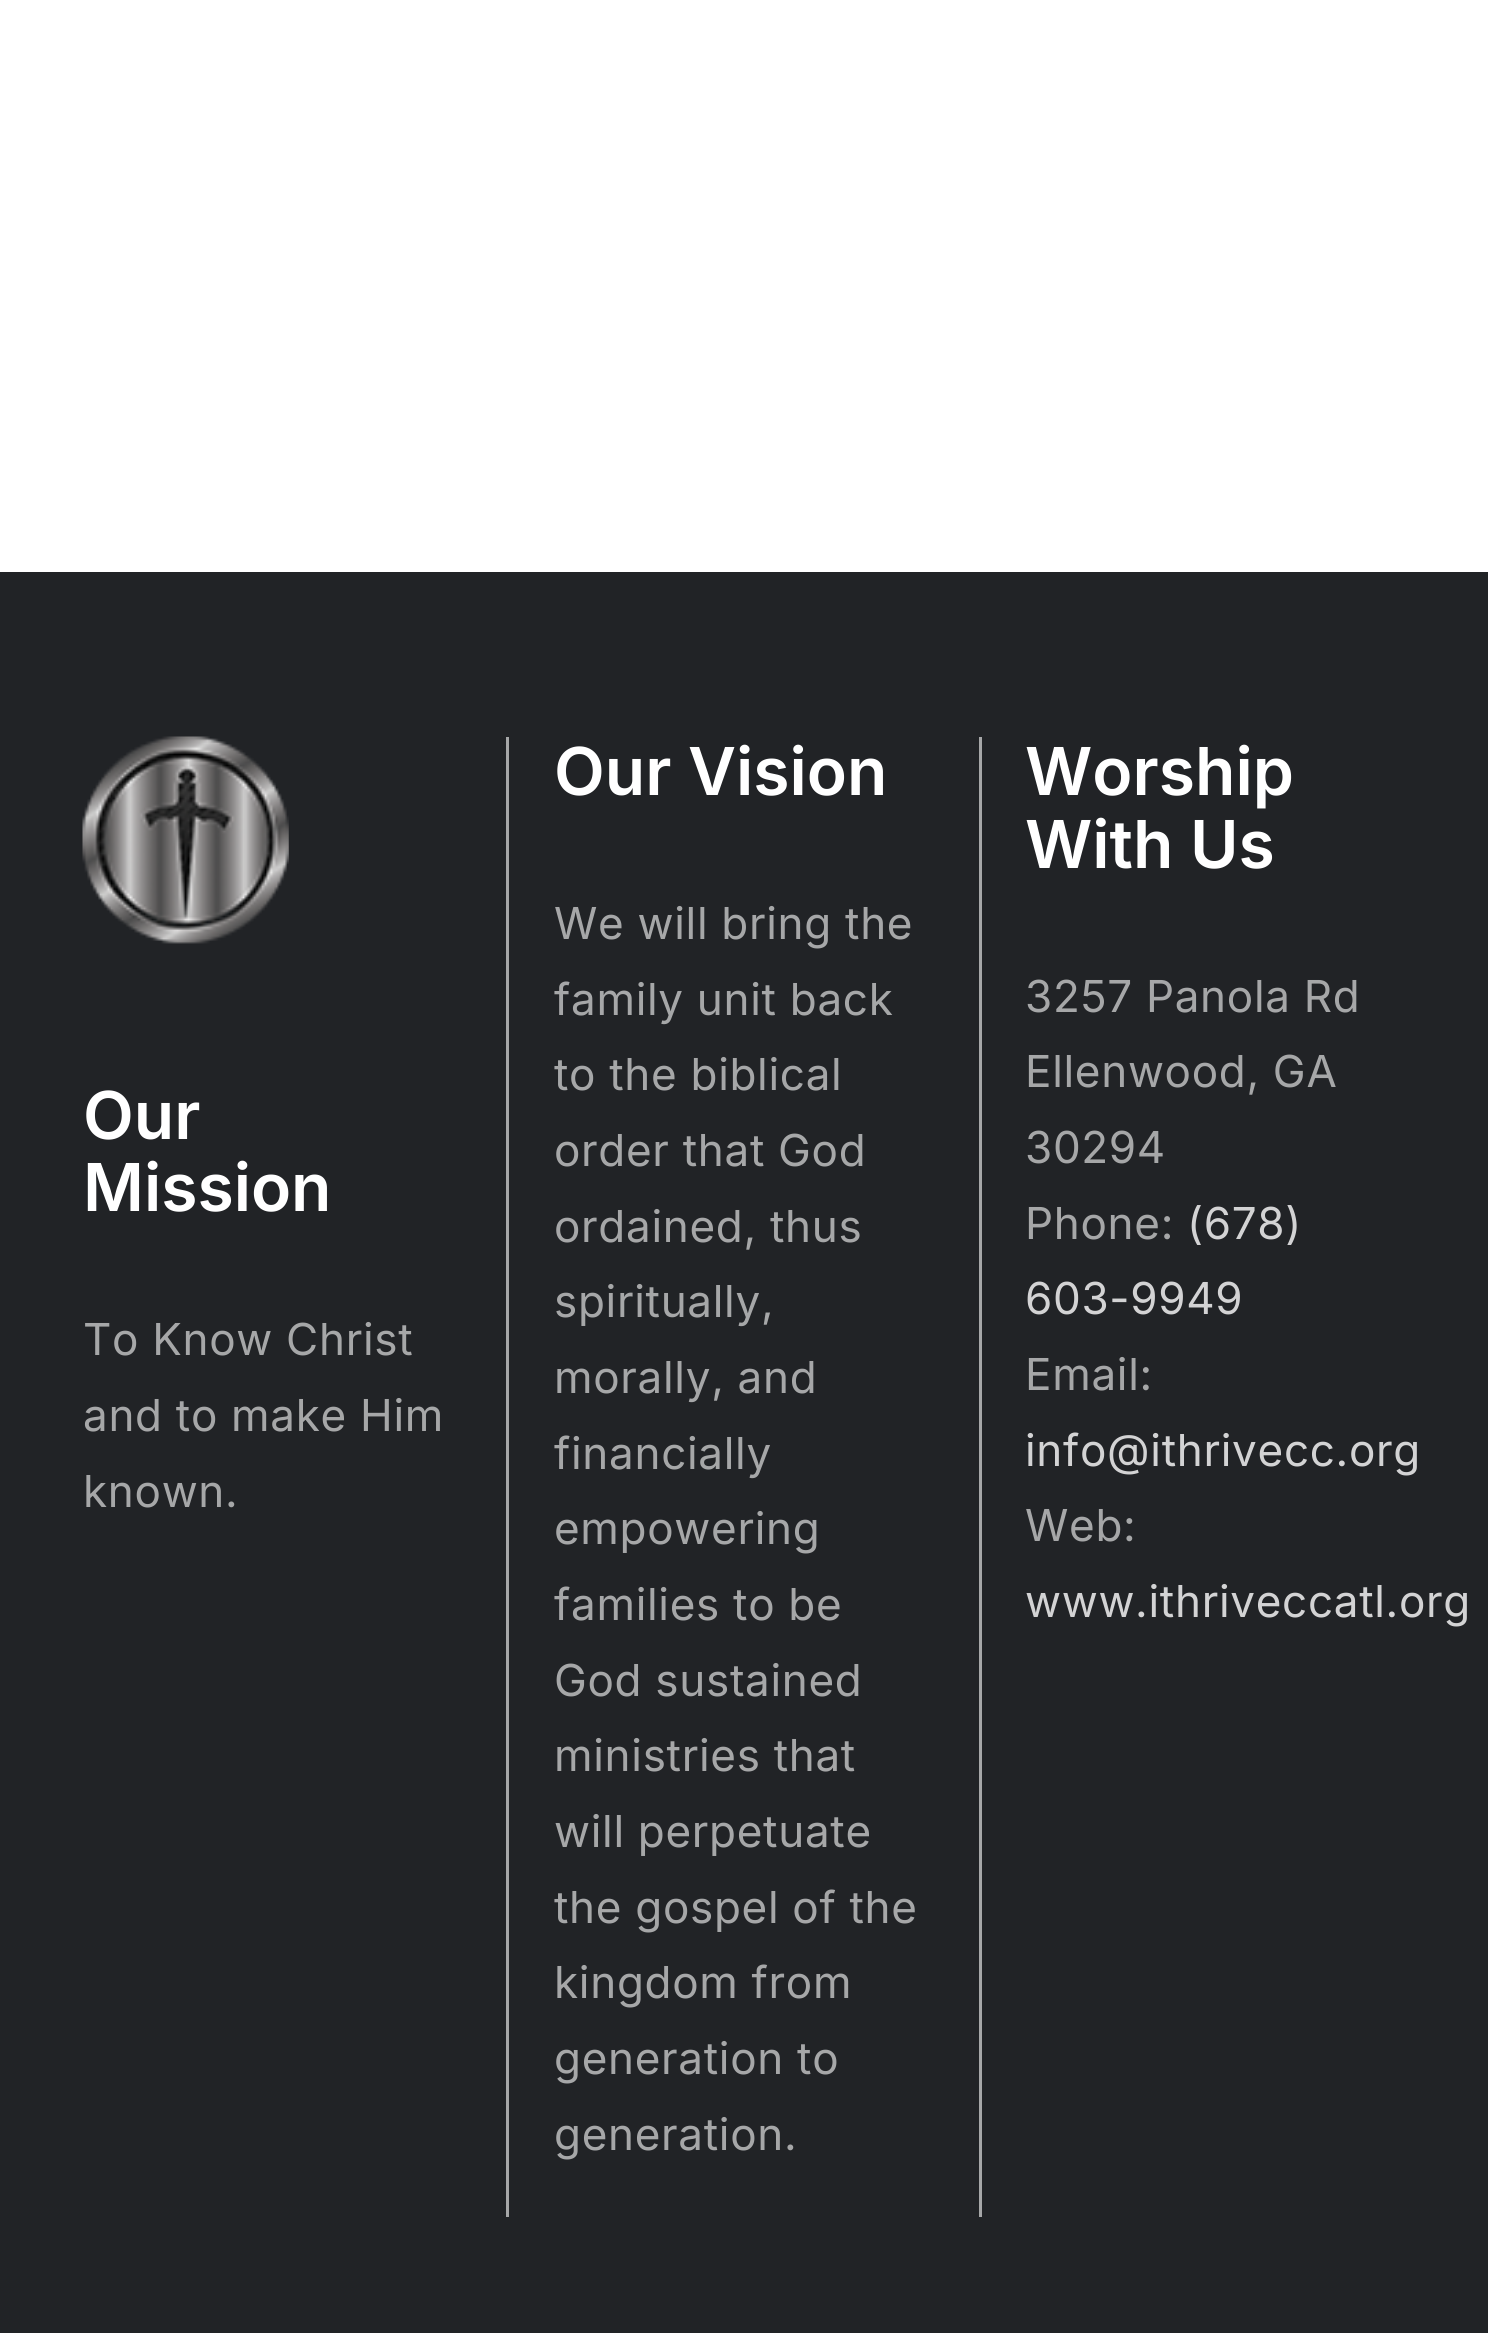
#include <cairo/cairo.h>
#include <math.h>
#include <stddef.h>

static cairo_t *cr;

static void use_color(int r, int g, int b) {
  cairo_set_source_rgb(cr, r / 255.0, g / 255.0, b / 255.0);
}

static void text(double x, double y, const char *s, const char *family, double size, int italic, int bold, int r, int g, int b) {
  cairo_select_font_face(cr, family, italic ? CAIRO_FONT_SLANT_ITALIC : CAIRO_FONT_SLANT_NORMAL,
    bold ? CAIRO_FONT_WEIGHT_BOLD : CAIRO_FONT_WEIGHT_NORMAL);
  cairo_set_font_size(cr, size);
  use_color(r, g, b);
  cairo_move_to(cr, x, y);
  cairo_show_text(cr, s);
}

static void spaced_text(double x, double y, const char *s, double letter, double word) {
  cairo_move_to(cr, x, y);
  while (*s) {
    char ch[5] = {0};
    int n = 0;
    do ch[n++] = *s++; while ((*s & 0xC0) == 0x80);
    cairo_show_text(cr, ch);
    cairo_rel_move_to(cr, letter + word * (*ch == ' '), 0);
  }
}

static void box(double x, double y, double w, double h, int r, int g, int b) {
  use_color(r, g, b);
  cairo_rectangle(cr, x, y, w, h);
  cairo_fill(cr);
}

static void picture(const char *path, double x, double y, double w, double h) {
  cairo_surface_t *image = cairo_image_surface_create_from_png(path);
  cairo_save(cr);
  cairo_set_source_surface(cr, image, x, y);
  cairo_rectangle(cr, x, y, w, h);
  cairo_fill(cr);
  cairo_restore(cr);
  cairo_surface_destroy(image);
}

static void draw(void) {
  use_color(255, 255, 255);
  cairo_paint(cr);
  box(0, 572, 1488, 1761, 33, 35, 38);
  box(506, 737, 3, 1480, 166, 167, 168);
  picture("img_01.png", 82, 736, 207, 208);
  box(979, 737, 3, 1480, 166, 167, 168);
  text(83, 1139, "Our", "Inter SemiBold", 66, 0, 0, 255, 255, 255);
  text(83, 1211, "Mission", "Inter SemiBold", 66, 0, 0, 255, 255, 255);
  cairo_select_font_face(cr, "Inter", CAIRO_FONT_SLANT_NORMAL, CAIRO_FONT_WEIGHT_NORMAL);
  cairo_set_font_size(cr, 44);
  use_color(166, 167, 168);
  spaced_text(83, 1355, "To Know Christ", 0.7, 0);
  spaced_text(83, 1431, "and to make Him", 0.7, 0);
  spaced_text(83, 1507, "known.", 0.7, 0);
  text(554, 795, "Our Vision", "Inter SemiBold", 66, 0, 0, 255, 255, 255);
  cairo_select_font_face(cr, "Inter", CAIRO_FONT_SLANT_NORMAL, CAIRO_FONT_WEIGHT_NORMAL);
  cairo_set_font_size(cr, 44);
  use_color(166, 167, 168);
  spaced_text(554, 939, "We will bring the", 0.7, 0);
  spaced_text(554, 1015, "family unit back", 0.7, 0);
  spaced_text(554, 1090, "to the biblical", 0.7, 0);
  spaced_text(554, 1166, "order that God", 0.7, 0);
  spaced_text(554, 1242, "ordained, thus", 0.7, 0);
  spaced_text(554, 1317, "spiritually,", 0.7, 0);
  spaced_text(554, 1393, "morally, and", 0.7, 0);
  spaced_text(554, 1469, "financially", 0.7, 0);
  spaced_text(554, 1544, "empowering", 0.7, 0);
  spaced_text(554, 1620, "families to be", 0.7, 0);
  spaced_text(554, 1696, "God sustained", 0.7, 0);
  spaced_text(554, 1771, "ministries that", 0.7, 0);
  spaced_text(554, 1847, "will perpetuate", 0.7, 0);
  spaced_text(554, 1923, "the gospel of the", 0.7, 0);
  spaced_text(554, 1998, "kingdom from", 0.7, 0);
  spaced_text(554, 2074, "generation to", 0.7, 0);
  spaced_text(554, 2150, "generation.", 0.7, 0);
  text(1025, 795, "Worship", "Inter SemiBold", 66, 0, 0, 255, 255, 255);
  text(1025, 868, "With Us", "Inter SemiBold", 66, 0, 0, 255, 255, 255);
  cairo_select_font_face(cr, "Inter", CAIRO_FONT_SLANT_NORMAL, CAIRO_FONT_WEIGHT_NORMAL);
  cairo_set_font_size(cr, 44);
  use_color(166, 167, 168);
  spaced_text(1025, 1012, "3257 Panola Rd", 0.7, 0);
  spaced_text(1025, 1087, "Ellenwood, GA", 0.7, 0);
  spaced_text(1025, 1163, "30294", 0.7, 0);
  spaced_text(1025, 1239, "Phone:", 0.7, 0);
  use_color(211, 211, 212);
  spaced_text(1187, 1239, "(678)", 0.7, 0);
  spaced_text(1025, 1314, "603-9949", 0.7, 0);
  use_color(166, 167, 168);
  spaced_text(1025, 1390, "Email:", 0.7, 0);
  use_color(211, 211, 212);
  spaced_text(1025, 1466, "info@ithrivecc.org", 0.7, 0);
  use_color(166, 167, 168);
  spaced_text(1025, 1541, "Web:", 0.7, 0);
  use_color(211, 211, 212);
  spaced_text(1025, 1617, "www.ithriveccatl.org", 0.7, 0);
}

int main(void) {
  cairo_surface_t *surface = cairo_image_surface_create(CAIRO_FORMAT_RGB24, 1488, 2333);
  cr = cairo_create(surface);
  cairo_font_options_t *options = cairo_font_options_create();
  cairo_font_options_set_hint_metrics(options, CAIRO_HINT_METRICS_OFF);
  cairo_font_options_set_hint_style(options, CAIRO_HINT_STYLE_NONE);
  cairo_set_font_options(cr, options);
  cairo_set_miter_limit(cr, 4);
  draw();
  cairo_surface_write_to_png(surface, "out.png");
  cairo_font_options_destroy(options);
  cairo_destroy(cr);
  cairo_surface_destroy(surface);
  return 0;
}
